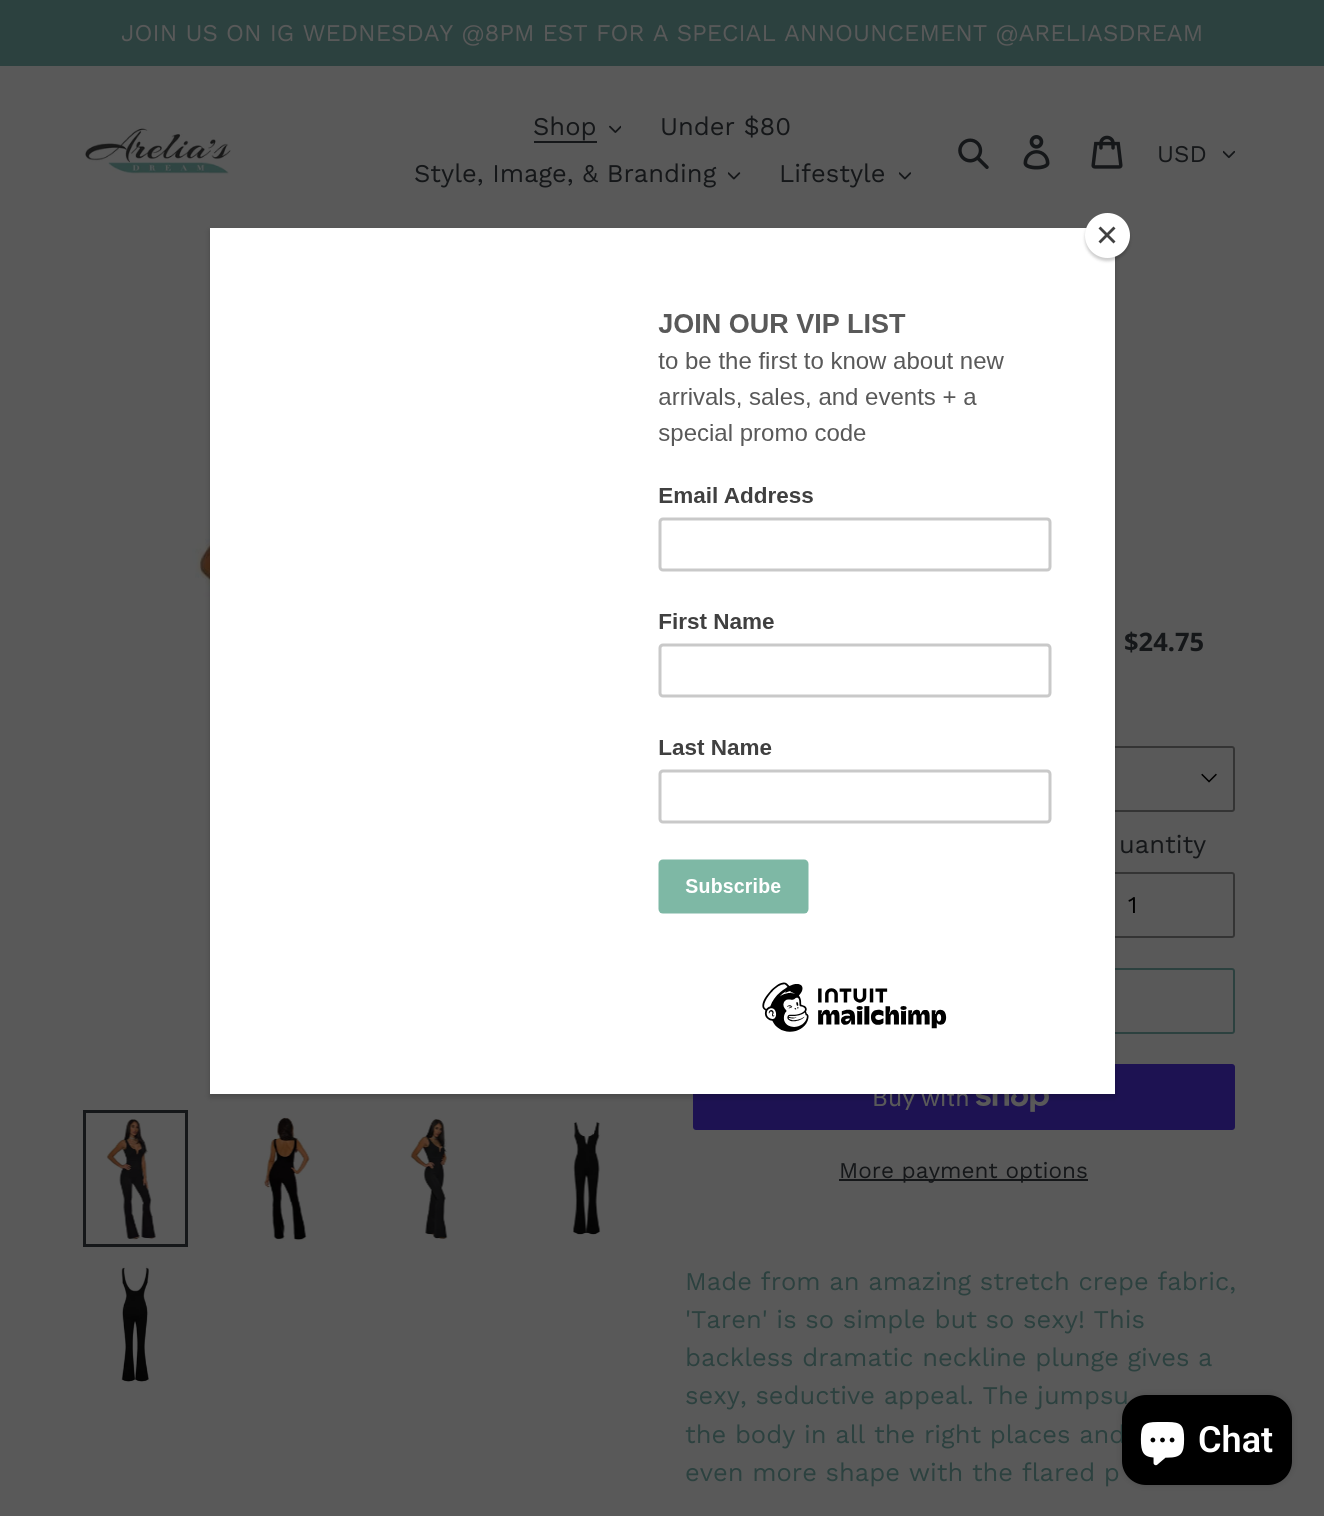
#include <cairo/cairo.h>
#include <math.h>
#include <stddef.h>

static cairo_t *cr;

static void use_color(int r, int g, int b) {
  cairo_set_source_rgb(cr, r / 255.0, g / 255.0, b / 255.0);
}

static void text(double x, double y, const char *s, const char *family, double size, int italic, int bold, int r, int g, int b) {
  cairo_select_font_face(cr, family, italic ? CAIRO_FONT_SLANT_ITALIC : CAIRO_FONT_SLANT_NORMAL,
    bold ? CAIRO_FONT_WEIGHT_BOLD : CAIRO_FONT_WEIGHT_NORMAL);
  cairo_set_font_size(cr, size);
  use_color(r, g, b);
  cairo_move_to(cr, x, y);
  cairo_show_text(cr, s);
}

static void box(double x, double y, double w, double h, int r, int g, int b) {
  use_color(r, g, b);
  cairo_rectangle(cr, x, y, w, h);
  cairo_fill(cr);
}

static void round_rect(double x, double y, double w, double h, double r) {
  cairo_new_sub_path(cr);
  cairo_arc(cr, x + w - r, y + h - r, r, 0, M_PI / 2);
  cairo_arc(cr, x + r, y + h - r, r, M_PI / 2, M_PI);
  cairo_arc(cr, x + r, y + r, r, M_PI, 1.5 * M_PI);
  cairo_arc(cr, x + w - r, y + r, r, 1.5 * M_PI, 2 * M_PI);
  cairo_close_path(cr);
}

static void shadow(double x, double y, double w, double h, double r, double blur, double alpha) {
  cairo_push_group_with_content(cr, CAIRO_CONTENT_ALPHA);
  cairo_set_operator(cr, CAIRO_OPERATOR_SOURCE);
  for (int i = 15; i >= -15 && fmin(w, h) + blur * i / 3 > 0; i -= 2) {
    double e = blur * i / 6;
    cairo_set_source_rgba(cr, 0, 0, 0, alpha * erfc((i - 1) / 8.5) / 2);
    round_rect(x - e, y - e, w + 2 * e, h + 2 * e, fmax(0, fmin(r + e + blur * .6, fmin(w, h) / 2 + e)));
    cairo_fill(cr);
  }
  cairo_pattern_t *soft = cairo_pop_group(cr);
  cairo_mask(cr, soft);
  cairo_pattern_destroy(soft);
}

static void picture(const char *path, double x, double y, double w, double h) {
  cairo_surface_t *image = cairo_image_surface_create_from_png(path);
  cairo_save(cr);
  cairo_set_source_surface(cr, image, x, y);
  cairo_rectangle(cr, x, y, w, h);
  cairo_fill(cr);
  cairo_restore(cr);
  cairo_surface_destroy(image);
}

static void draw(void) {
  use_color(89, 89, 89);
  cairo_paint(cr);
  box(0, 0, 1324, 66, 44, 65, 63);
  picture("img_01.png", 84, 127, 147, 48);
  box(534, 141, 63, 2, 21, 23, 25);
  picture("img_02.png", 609, 125, 12, 8);
  picture("img_03.png", 728, 172, 13, 8);
  picture("img_04.png", 899, 172, 12, 8);
  picture("img_05.png", 958, 138, 31, 31);
  picture("img_06.png", 1023, 135, 27, 35);
  picture("img_07.png", 1091, 135, 32, 34);
  picture("img_08.png", 1223, 150, 12, 9);
  picture("img_10.png", 192, 344, 18, 709);
  picture("img_16.png", 1201, 773, 16, 10);
  round_rect(694, 747, 540, 64, 2);
  use_color(52, 52, 52);
  cairo_stroke(cr);
  round_rect(1101, 873, 133, 64, 2);
  cairo_stroke(cr);
  round_rect(694, 969, 540, 64, 2);
  use_color(44, 65, 63);
  cairo_stroke(cr);
  use_color(29, 18, 82);
  round_rect(693, 1064, 542, 66, 3);
  cairo_fill(cr);
  picture("img_17.png", 975, 1094, 74, 18);
  use_color(0, 0, 0);
  shadow(210, 231, 905, 866, 0, 3, 0.2);
  cairo_rectangle(cr, 84.5, 1111.5, 102, 134);
  use_color(21, 23, 25);
  cairo_set_line_width(cr, 3);
  cairo_stroke(cr);
  picture("img_11.png", 106, 1119, 50, 121);
  picture("img_12.png", 261, 1117, 49, 124);
  picture("img_13.png", 408, 1118, 41, 122);
  picture("img_14.png", 572, 1121, 29, 114);
  picture("img_15.png", 121, 1266, 29, 117);
  box(839, 1179, 249, 2, 21, 23, 25);
  use_color(0, 0, 0);
  shadow(1122, 1395, 170, 90, 24, 4, 0.15);
  text(121, 41, "JOIN US ON IG WEDNESDAY @8PM EST FOR A SPECIAL ANNOUNCEMENT @ARELIASDREAM", "Work Sans", 24, 0, 0, 89, 89, 89);
  text(533, 135, "Shop", "Work Sans", 25.5, 0, 0, 21, 23, 25);
  text(660, 135, "Under $80", "Work Sans", 25.5, 0, 0, 21, 23, 25);
  text(414, 182, "Style, Image, & Branding", "Work Sans", 25.5, 0, 0, 21, 23, 25);
  text(779, 182, "Lifestyle", "Work Sans", 25.5, 0, 0, 21, 23, 25);
  text(1157, 162, "USD", "Work Sans", 24, 0, 0, 21, 23, 25);
  text(1124, 651, "$24.75", "Noto Sans", 25.5, 0, 1, 21, 23, 25);
  text(1119, 853, "uantity", "Work Sans", 25.5, 0, 0, 21, 23, 25);
  text(1128, 913, "1", "Work Sans", 24, 0, 0, 0, 0, 0);
  text(872, 1106, "Buy with", "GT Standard", 24, 0, 0, 89, 89, 89);
  picture("img_09.png", 210, 228, 905, 866);
  use_color(0, 0, 0);
  shadow(1085, 216, 45, 45, 22.5, 1.5, 0.2);
  use_color(255, 255, 255);
  cairo_arc(cr, 1107.5, 235.5, 22.5, 0, 2 * M_PI);
  cairo_fill(cr);
  use_color(65, 65, 65);
  cairo_new_path(cr);
  cairo_move_to(cr, 1113.5, 226.5);
  cairo_line_to(cr, 1115.5, 228.5);
  cairo_line_to(cr, 1100.5, 243.5);
  cairo_line_to(cr, 1098.5, 241.5);
  cairo_close_path(cr);
  cairo_fill(cr);
  cairo_new_path(cr);
  cairo_move_to(cr, 1098.5, 228.5);
  cairo_line_to(cr, 1100.5, 226.5);
  cairo_line_to(cr, 1115.5, 241.5);
  cairo_line_to(cr, 1113.5, 243.5);
  cairo_close_path(cr);
  cairo_fill(cr);
  text(839, 1178, "More payment options", "Work Sans", 22.5, 0, 0, 21, 23, 25);
  text(685, 1290, "Made from an amazing stretch crepe fabric,", "Work Sans", 25.5, 0, 0, 44, 65, 63);
  text(685, 1328, "'Taren' is so simple but so sexy! This", "Work Sans", 25.5, 0, 0, 44, 65, 63);
  text(685, 1366, "backless dramatic neckline plunge gives a", "Work Sans", 25.5, 0, 0, 44, 65, 63);
  text(685, 1404, "sexy, seductive appeal. The jumpsu", "Work Sans", 25.5, 0, 0, 44, 65, 63);
  text(685, 1443, "the body in all the right places and", "Work Sans", 25.5, 0, 0, 44, 65, 63);
  text(685, 1481, "even more shape with the flared p", "Work Sans", 25.5, 0, 0, 44, 65, 63);
  use_color(0, 0, 0);
  round_rect(1122, 1395, 170, 90, 24);
  cairo_fill(cr);
  picture("img_18.png", 1140, 1422, 45, 44);
  text(1198, 1452, "Chat", "Roboto SemiBold", 36, 0, 0, 255, 255, 255);
}

int main(void) {
  cairo_surface_t *surface = cairo_image_surface_create(CAIRO_FORMAT_RGB24, 1324, 1516);
  cr = cairo_create(surface);
  cairo_font_options_t *options = cairo_font_options_create();
  cairo_font_options_set_hint_metrics(options, CAIRO_HINT_METRICS_OFF);
  cairo_font_options_set_hint_style(options, CAIRO_HINT_STYLE_NONE);
  cairo_set_font_options(cr, options);
  cairo_set_miter_limit(cr, 4);
  draw();
  cairo_surface_write_to_png(surface, "out.png");
  cairo_font_options_destroy(options);
  cairo_destroy(cr);
  cairo_surface_destroy(surface);
  return 0;
}
